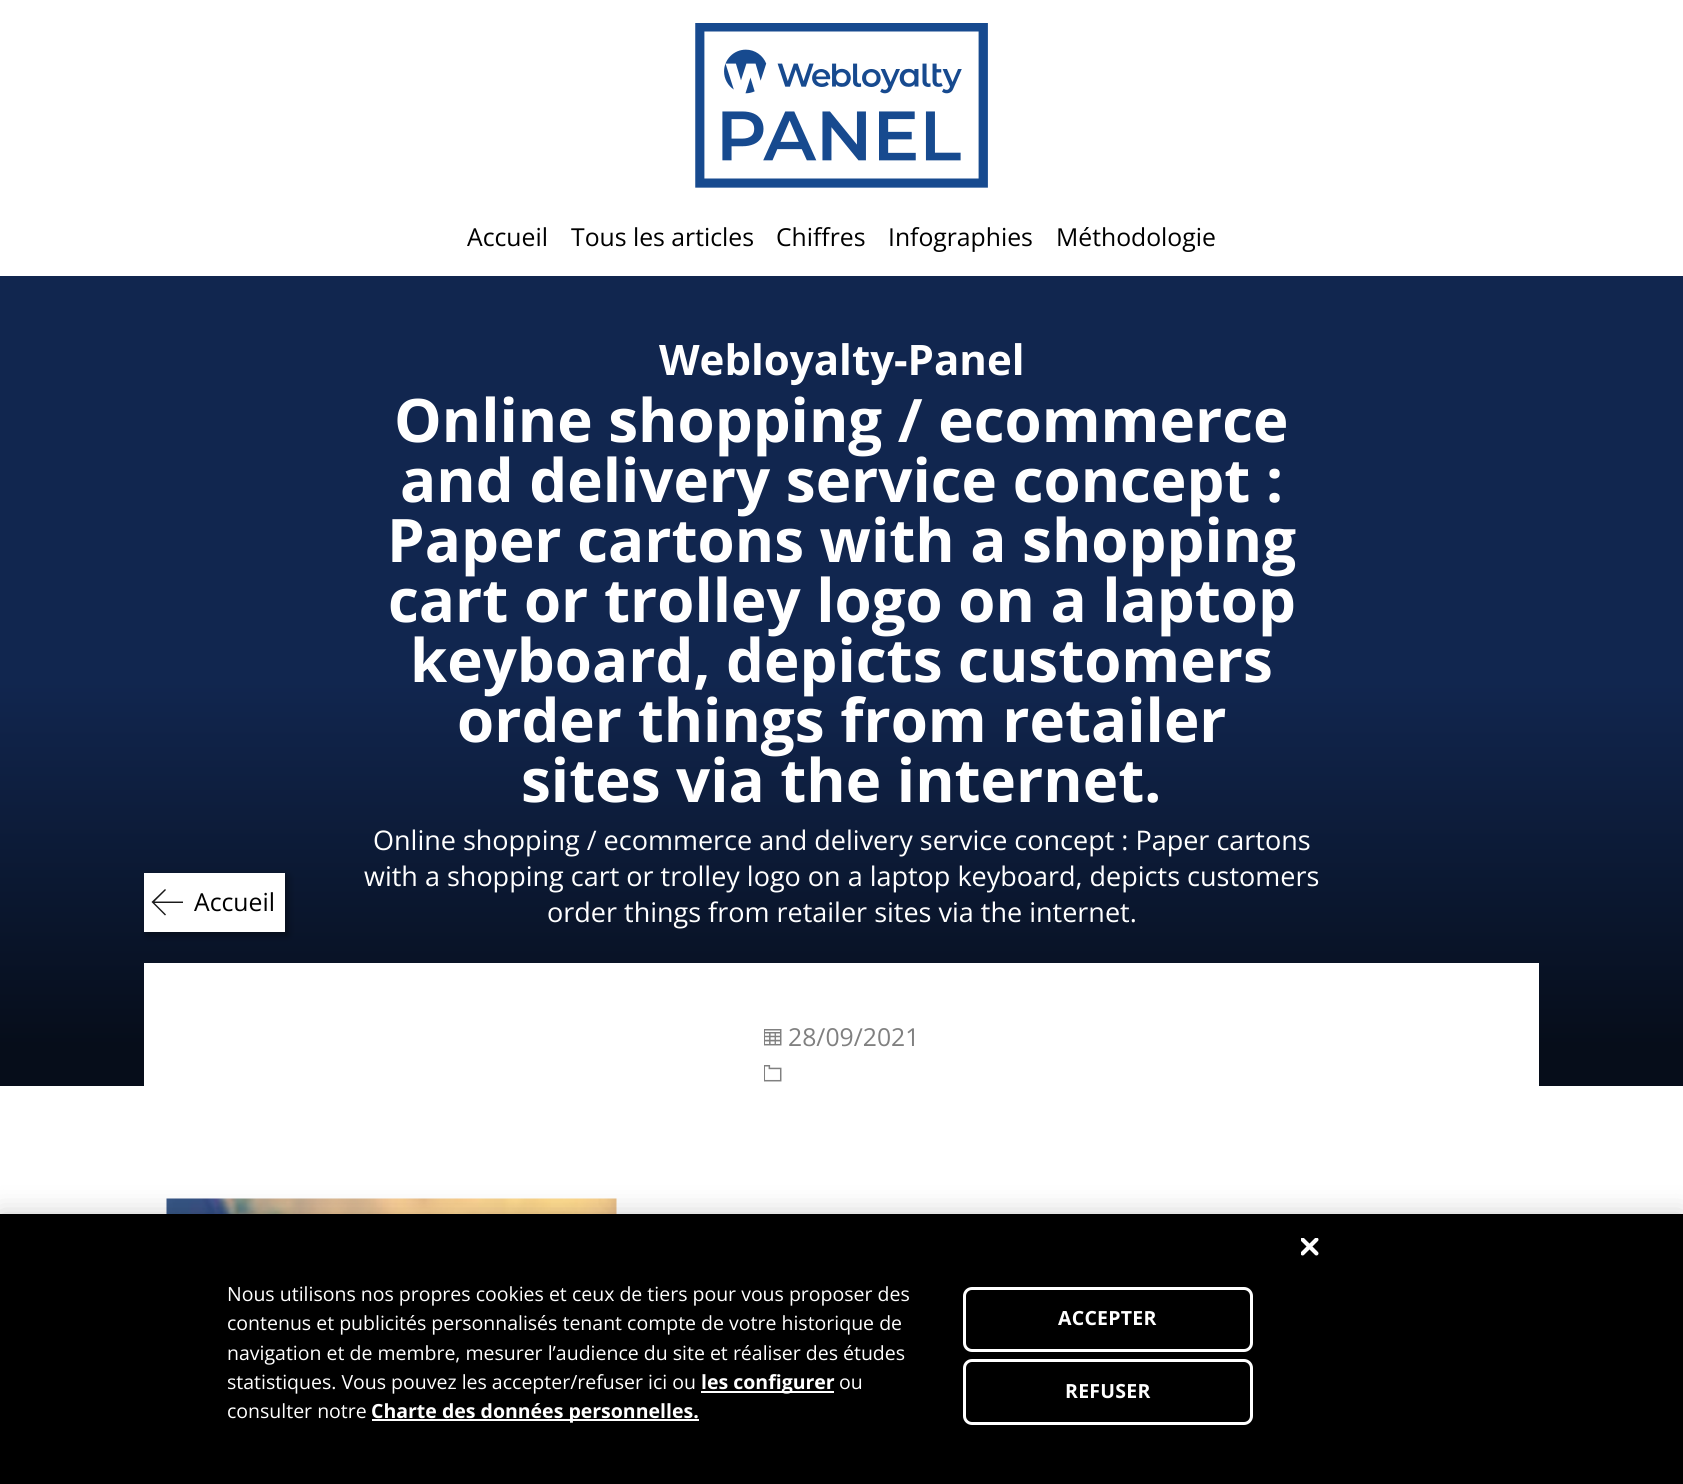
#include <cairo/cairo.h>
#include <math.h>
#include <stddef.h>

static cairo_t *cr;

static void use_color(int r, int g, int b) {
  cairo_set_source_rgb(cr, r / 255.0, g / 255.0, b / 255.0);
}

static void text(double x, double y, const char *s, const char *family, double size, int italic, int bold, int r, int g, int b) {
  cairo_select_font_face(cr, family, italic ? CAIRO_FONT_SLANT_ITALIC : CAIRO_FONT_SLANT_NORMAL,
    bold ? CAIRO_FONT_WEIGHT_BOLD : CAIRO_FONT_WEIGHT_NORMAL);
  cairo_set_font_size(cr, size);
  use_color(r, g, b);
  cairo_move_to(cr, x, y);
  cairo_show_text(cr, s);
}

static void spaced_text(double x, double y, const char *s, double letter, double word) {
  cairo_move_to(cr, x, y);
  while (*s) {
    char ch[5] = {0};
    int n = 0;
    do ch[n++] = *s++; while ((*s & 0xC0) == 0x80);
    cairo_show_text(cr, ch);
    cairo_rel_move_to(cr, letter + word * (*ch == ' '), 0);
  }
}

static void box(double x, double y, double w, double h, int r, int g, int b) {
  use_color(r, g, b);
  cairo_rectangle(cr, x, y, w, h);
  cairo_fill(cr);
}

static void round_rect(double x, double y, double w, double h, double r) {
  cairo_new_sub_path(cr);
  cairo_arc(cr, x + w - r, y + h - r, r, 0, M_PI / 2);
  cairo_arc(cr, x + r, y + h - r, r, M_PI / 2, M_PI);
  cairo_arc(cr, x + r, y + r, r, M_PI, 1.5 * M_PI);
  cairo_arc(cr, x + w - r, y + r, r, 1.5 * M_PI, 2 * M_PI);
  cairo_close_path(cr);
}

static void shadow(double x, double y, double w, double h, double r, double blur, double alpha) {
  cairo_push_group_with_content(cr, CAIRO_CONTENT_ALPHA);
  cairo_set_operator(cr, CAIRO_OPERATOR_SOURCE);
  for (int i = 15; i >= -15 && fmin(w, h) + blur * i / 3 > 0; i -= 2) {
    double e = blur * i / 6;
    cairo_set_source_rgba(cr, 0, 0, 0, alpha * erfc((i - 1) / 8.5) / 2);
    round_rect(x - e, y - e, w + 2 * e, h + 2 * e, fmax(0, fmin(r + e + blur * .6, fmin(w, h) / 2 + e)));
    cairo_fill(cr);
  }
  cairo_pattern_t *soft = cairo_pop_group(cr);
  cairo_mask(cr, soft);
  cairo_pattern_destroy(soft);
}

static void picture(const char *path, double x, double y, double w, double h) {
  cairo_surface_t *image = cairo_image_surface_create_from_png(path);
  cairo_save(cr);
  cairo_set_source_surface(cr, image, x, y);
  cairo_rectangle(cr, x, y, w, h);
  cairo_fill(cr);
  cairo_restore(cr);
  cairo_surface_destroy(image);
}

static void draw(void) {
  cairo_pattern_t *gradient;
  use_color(255, 255, 255);
  cairo_paint(cr);
  picture("img_01.png", 695, 23, 293, 165);
  gradient = cairo_pattern_create_linear(842, 276, 842, 1086);
  cairo_pattern_add_color_stop_rgba(gradient, 0.5, 0.067, 0.149, 0.31, 1);
  cairo_pattern_add_color_stop_rgba(gradient, 0.95, 0.024, 0.051, 0.102, 1);
  cairo_set_source(cr, gradient);
  cairo_pattern_destroy(gradient);
  cairo_rectangle(cr, 0, 276, 1683, 810);
  cairo_fill(cr);
  box(144, 963, 1395, 123, 255, 255, 255);
  use_color(0, 0, 0);
  shadow(147, 876, 141, 59, 0, 4, 0.4);
  box(144, 873, 141, 59, 255, 255, 255);
  use_color(26, 26, 26);
  cairo_new_path(cr);
  cairo_move_to(cr, 165, 915.5);
  cairo_line_to(cr, 166, 914.5);
  cairo_line_to(cr, 154.5, 903);
  cairo_line_to(cr, 183, 903);
  cairo_line_to(cr, 183, 901.5);
  cairo_line_to(cr, 154.5, 901.5);
  cairo_line_to(cr, 166, 890);
  cairo_line_to(cr, 165, 889);
  cairo_line_to(cr, 151.5, 902);
  cairo_close_path(cr);
  cairo_fill(cr);
  picture("img_02.png", 764, 1029, 18, 17);
  picture("img_03.png", 764, 1065, 18, 17);
  picture("img_04.png", 166, 1198, 451, 16);
  use_color(0, 0, 0);
  shadow(0, 1214, 1683, 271, 0, 13.5, 0.2);
  box(0, 1214, 1683, 270, 0, 0, 0);
  picture("img_05.png", 1301, 1238, 18, 18);
  box(701, 1391, 133, 2, 255, 255, 255);
  box(372, 1419, 327, 2, 255, 255, 255);
  round_rect(964.5, 1288.5, 287, 62, 7.5);
  cairo_set_line_width(cr, 3);
  cairo_stroke(cr);
  round_rect(964.5, 1360.5, 287, 63, 7.5);
  cairo_stroke(cr);
  text(467, 246, "Accueil", "Open Sans", 24.75, 0, 0, 0, 0, 0);
  text(571, 246, "Tous les articles", "Open Sans", 24.75, 0, 0, 0, 0, 0);
  text(776, 246, "Chiffres", "Open Sans", 24.75, 0, 0, 0, 0, 0);
  text(888, 246, "Infographies", "Open Sans", 24.75, 0, 0, 0, 0, 0);
  text(1056, 246, "Méthodologie", "Open Sans", 24.75, 0, 0, 0, 0, 0);
  text(659, 375, "Webloyalty-Panel", "Open Sans", 42, 0, 1, 255, 255, 255);
  text(394, 442, "Online shopping / ecommerce", "Open Sans", 60, 0, 1, 255, 255, 255);
  text(400, 502, "and delivery service concept :", "Open Sans", 60, 0, 1, 255, 255, 255);
  text(387, 562, "Paper cartons with a shopping", "Open Sans", 60, 0, 1, 255, 255, 255);
  text(388, 622, "cart or trolley logo on a laptop", "Open Sans", 60, 0, 1, 255, 255, 255);
  text(410, 682, "keyboard, depicts customers", "Open Sans", 60, 0, 1, 255, 255, 255);
  text(457, 742, "order things from retailer", "Open Sans", 60, 0, 1, 255, 255, 255);
  text(521, 802, "sites via the internet.", "Open Sans", 60, 0, 1, 255, 255, 255);
  text(373, 850, "Online shopping / ecommerce and delivery service concept : Paper cartons", "Open Sans", 27, 0, 0, 255, 255, 255);
  text(364, 886, "with a shopping cart or trolley logo on a laptop keyboard, depicts customers", "Open Sans", 27, 0, 0, 255, 255, 255);
  text(547, 922, "order things from retailer sites via the internet.", "Open Sans", 27, 0, 0, 255, 255, 255);
  text(194, 911, "Accueil", "Open Sans", 24.75, 0, 0, 0, 0, 0);
  text(788, 1046, "28/09/2021", "Open Sans", 24.75, 0, 0, 128, 128, 128);
  text(227, 1301, "Nous utilisons nos propres cookies et ceux de tiers pour vous proposer des", "Open Sans", 19.5, 0, 0, 255, 255, 255);
  text(227, 1330, "contenus et publicités personnalisés tenant compte de votre historique de", "Open Sans", 19.5, 0, 0, 255, 255, 255);
  text(227, 1360, "navigation et de membre, mesurer l’audience du site et réaliser des études", "Open Sans", 19.5, 0, 0, 255, 255, 255);
  text(227, 1389, "statistiques. Vous pouvez les accepter/refuser ici ou", "Open Sans", 19.5, 0, 0, 255, 255, 255);
  text(701, 1389, "les configurer", "Open Sans", 19.5, 0, 1, 255, 255, 255);
  text(839, 1389, "ou", "Open Sans", 19.5, 0, 0, 255, 255, 255);
  text(227, 1418, "consulter notre", "Open Sans", 19.5, 0, 0, 255, 255, 255);
  text(371, 1418, "Charte des données personnelles.", "Open Sans", 19.5, 0, 1, 255, 255, 255);
  spaced_text(1058, 1325, "ACCEPTER", 0.25, 0);
  spaced_text(1065, 1398, "REFUSER", 0.25, 0);
}

int main(void) {
  cairo_surface_t *surface = cairo_image_surface_create(CAIRO_FORMAT_RGB24, 1683, 1484);
  cr = cairo_create(surface);
  cairo_font_options_t *options = cairo_font_options_create();
  cairo_font_options_set_hint_metrics(options, CAIRO_HINT_METRICS_OFF);
  cairo_font_options_set_hint_style(options, CAIRO_HINT_STYLE_NONE);
  cairo_set_font_options(cr, options);
  cairo_set_miter_limit(cr, 4);
  draw();
  cairo_surface_write_to_png(surface, "out.png");
  cairo_font_options_destroy(options);
  cairo_destroy(cr);
  cairo_surface_destroy(surface);
  return 0;
}
